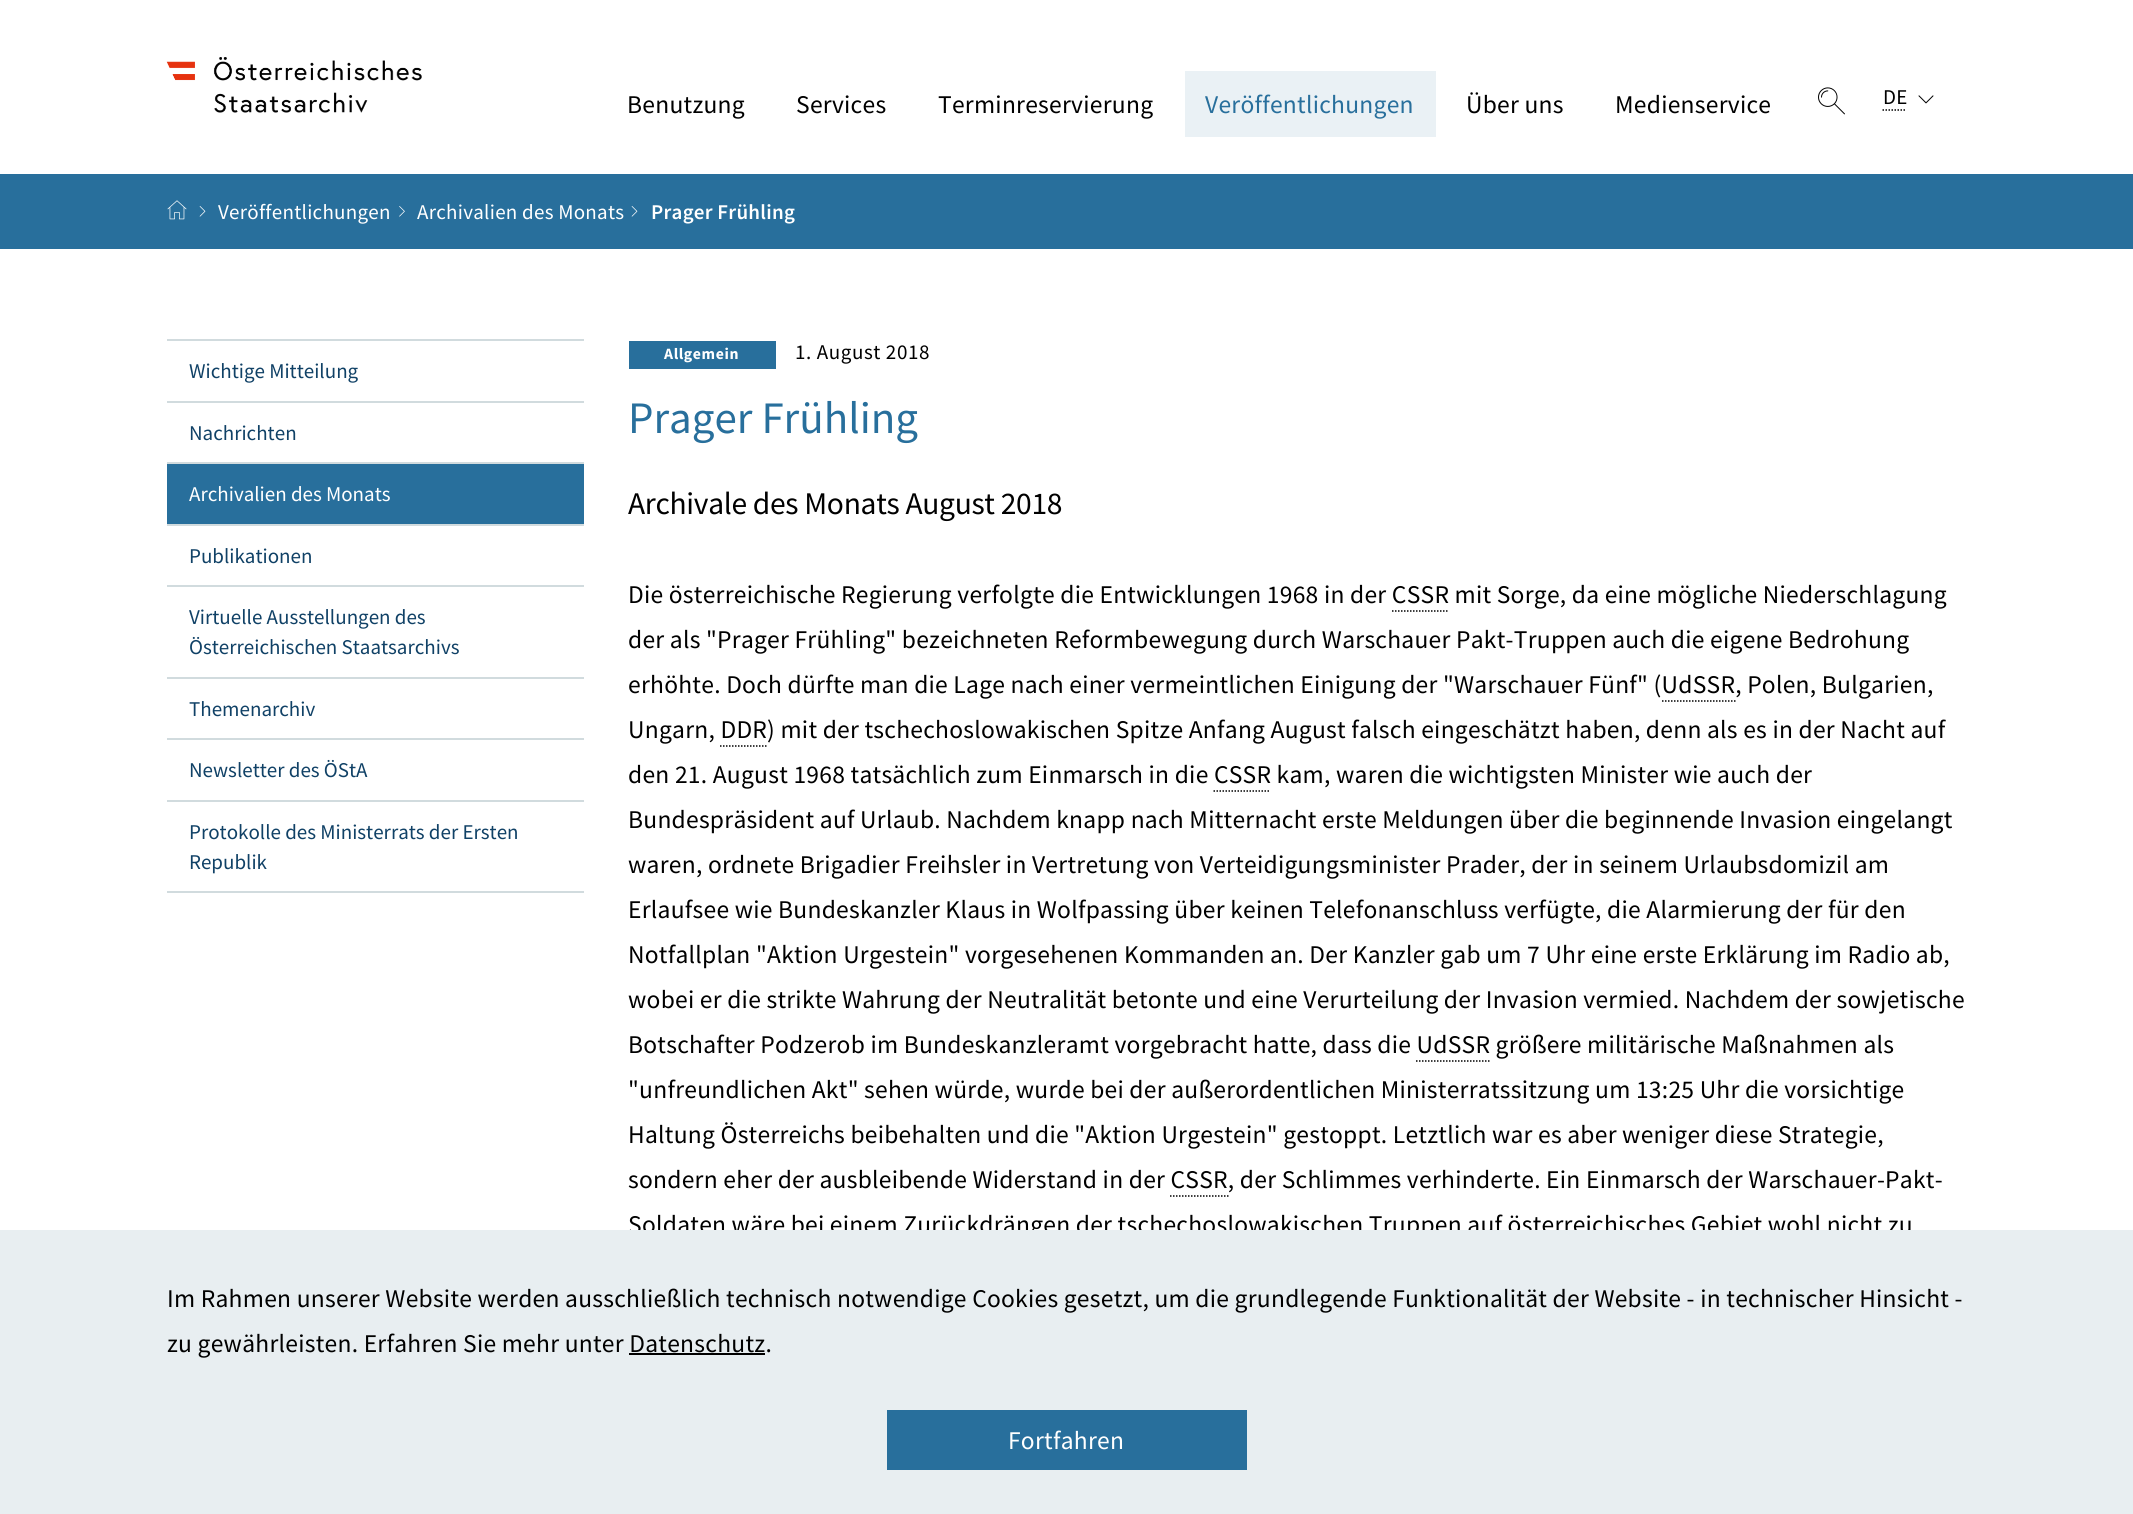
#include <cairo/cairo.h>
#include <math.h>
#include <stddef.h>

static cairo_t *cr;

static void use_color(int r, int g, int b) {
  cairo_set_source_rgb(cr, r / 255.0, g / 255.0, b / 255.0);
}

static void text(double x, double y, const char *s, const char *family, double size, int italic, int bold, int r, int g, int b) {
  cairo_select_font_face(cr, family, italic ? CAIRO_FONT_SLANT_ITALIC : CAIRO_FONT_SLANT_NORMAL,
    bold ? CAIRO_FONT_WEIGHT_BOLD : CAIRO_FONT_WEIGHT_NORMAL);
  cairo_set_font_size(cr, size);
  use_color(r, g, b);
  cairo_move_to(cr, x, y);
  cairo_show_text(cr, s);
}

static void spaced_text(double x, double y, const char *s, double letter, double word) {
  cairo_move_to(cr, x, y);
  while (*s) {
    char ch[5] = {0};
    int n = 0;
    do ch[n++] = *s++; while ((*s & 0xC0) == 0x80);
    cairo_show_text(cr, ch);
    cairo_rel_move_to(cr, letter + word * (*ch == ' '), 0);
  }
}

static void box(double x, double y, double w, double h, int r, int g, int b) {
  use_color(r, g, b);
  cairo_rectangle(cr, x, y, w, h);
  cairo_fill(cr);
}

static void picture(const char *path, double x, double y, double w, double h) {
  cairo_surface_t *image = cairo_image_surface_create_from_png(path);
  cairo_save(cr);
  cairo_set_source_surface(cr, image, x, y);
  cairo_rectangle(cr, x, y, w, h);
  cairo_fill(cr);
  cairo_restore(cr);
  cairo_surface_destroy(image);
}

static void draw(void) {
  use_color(255, 255, 255);
  cairo_paint(cr);
  picture("img_01.png", 166, 57, 256, 56);
  box(1185, 71, 251, 66, 234, 241, 245);
  picture("img_02.png", 1818, 87, 27, 28);
  cairo_new_path(cr);
  cairo_move_to(cr, 1882.5, 110);
  cairo_line_to(cr, 1906.5, 110);
  use_color(0, 0, 0);
  cairo_set_line_width(cr, 1.5);
  cairo_set_dash(cr, (double[]){1.5, 1.5}, 2, 0);
  cairo_stroke(cr);
  picture("img_03.png", 1918, 95, 16, 9);
  box(0, 174, 2133, 75, 40, 111, 156);
  picture("img_04.png", 167, 200, 20, 20);
  picture("img_05.png", 199, 206, 7, 11);
  picture("img_06.png", 399, 206, 6, 11);
  picture("img_05.png", 631, 206, 7, 11);
  box(167, 339, 417, 2, 209, 219, 222);
  box(167, 401, 417, 2, 209, 219, 222);
  box(167, 462, 417, 2, 209, 219, 222);
  box(167, 464, 417, 60, 40, 111, 156);
  box(167, 524, 417, 2, 209, 219, 222);
  box(167, 585, 417, 2, 209, 219, 222);
  box(167, 677, 417, 2, 209, 219, 222);
  box(167, 738, 417, 2, 209, 219, 222);
  box(167, 800, 417, 2, 209, 219, 222);
  box(167, 891, 417, 2, 209, 219, 222);
  box(629, 341, 147, 28, 40, 111, 156);
  cairo_new_path(cr);
  cairo_move_to(cr, 1392, 611);
  cairo_line_to(cr, 1449, 611);
  use_color(0, 0, 0);
  cairo_stroke(cr);
  cairo_new_path(cr);
  cairo_move_to(cr, 1662, 701);
  cairo_line_to(cr, 1735.5, 701);
  cairo_stroke(cr);
  cairo_new_path(cr);
  cairo_move_to(cr, 720, 746);
  cairo_line_to(cr, 766.5, 746);
  cairo_stroke(cr);
  cairo_new_path(cr);
  cairo_move_to(cr, 1213.5, 791);
  cairo_line_to(cr, 1270.5, 791);
  cairo_stroke(cr);
  cairo_new_path(cr);
  cairo_move_to(cr, 1416, 1061);
  cairo_line_to(cr, 1489.5, 1061);
  cairo_stroke(cr);
  cairo_new_path(cr);
  cairo_move_to(cr, 1170, 1196);
  cairo_line_to(cr, 1228.5, 1196);
  cairo_stroke(cr);
  cairo_select_font_face(cr, "Source Sans Pro", CAIRO_FONT_SLANT_NORMAL, CAIRO_FONT_WEIGHT_NORMAL);
  cairo_set_font_size(cr, 25.5);
  spaced_text(627, 113, "Benutzung", 0.26, 0);
  spaced_text(796, 113, "Services", 0.26, 0);
  spaced_text(938, 113, "Terminreservierung", 0.26, 0);
  use_color(40, 111, 156);
  spaced_text(1205, 113, "Veröffentlichungen", 0.26, 0);
  use_color(0, 0, 0);
  spaced_text(1466, 113, "Über uns", 0.26, 0);
  spaced_text(1615, 113, "Medienservice", 0.26, 0);
  cairo_set_font_size(cr, 21);
  spaced_text(1883, 104, "DE", 0.26, 0);
  use_color(255, 255, 255);
  spaced_text(218, 219, "Veröffentlichungen", 0.26, 0);
  spaced_text(417, 219, "Archivalien des Monats", 0.26, 0);
  cairo_select_font_face(cr, "Source Sans Pro SemiBold", CAIRO_FONT_SLANT_NORMAL, CAIRO_FONT_WEIGHT_NORMAL);
  spaced_text(651, 219, "Prager Frühling", 0.26, 0);
  text(189, 378, "Wichtige Mitteilung", "Source Sans Pro", 21, 0, 0, 16, 65, 102);
  text(189, 440, "Nachrichten", "Source Sans Pro", 21, 0, 0, 16, 65, 102);
  text(189, 501, "Archivalien des Monats", "Source Sans Pro", 21, 0, 0, 255, 255, 255);
  text(189, 563, "Publikationen", "Source Sans Pro", 21, 0, 0, 16, 65, 102);
  text(189, 624, "Virtuelle Ausstellungen des", "Source Sans Pro", 21, 0, 0, 16, 65, 102);
  text(189, 654, "Österreichischen Staatsarchivs", "Source Sans Pro", 21, 0, 0, 16, 65, 102);
  text(189, 716, "Themenarchiv", "Source Sans Pro", 21, 0, 0, 16, 65, 102);
  text(189, 777, "Newsletter des ÖStA", "Source Sans Pro", 21, 0, 0, 16, 65, 102);
  text(189, 839, "Protokolle des Ministerrats der Ersten", "Source Sans Pro", 21, 0, 0, 16, 65, 102);
  text(189, 869, "Republik", "Source Sans Pro", 21, 0, 0, 16, 65, 102);
  cairo_select_font_face(cr, "Source Sans Pro", CAIRO_FONT_SLANT_NORMAL, CAIRO_FONT_WEIGHT_BOLD);
  cairo_set_font_size(cr, 15.75);
  use_color(255, 255, 255);
  spaced_text(664, 359, "Allgemein", 0.6, 0);
  cairo_select_font_face(cr, "Source Sans Pro", CAIRO_FONT_SLANT_NORMAL, CAIRO_FONT_WEIGHT_NORMAL);
  cairo_set_font_size(cr, 21);
  use_color(0, 0, 0);
  spaced_text(795, 359, "1. August 2018", 0.6, 0);
  text(628, 433, "Prager Frühling", "Source Sans Pro", 45, 0, 0, 40, 111, 156);
  cairo_set_font_size(cr, 31.5);
  use_color(0, 0, 0);
  spaced_text(628, 514, "Archivale des Monats August 2018", -0.3, 0);
  cairo_set_font_size(cr, 25.5);
  spaced_text(628, 603, "Die österreichische Regierung verfolgte die Entwicklungen 1968 in der CSSR mit Sorge, da eine mögliche Niederschlagung", 0.26, 0);
  spaced_text(628, 648, "der als \"Prager Frühling\" bezeichneten Reformbewegung durch Warschauer Pakt-Truppen auch die eigene Bedrohung", 0.26, 0);
  spaced_text(628, 693, "erhöhte. Doch dürfte man die Lage nach einer vermeintlichen Einigung der \"Warschauer Fünf\" (UdSSR, Polen, Bulgarien,", 0.26, 0);
  spaced_text(628, 738, "Ungarn, DDR) mit der tschechoslowakischen Spitze Anfang August falsch eingeschätzt haben, denn als es in der Nacht auf", 0.26, 0);
  spaced_text(628, 783, "den 21. August 1968 tatsächlich zum Einmarsch in die CSSR kam, waren die wichtigsten Minister wie auch der", 0.26, 0);
  spaced_text(628, 828, "Bundespräsident auf Urlaub. Nachdem knapp nach Mitternacht erste Meldungen über die beginnende Invasion eingelangt", 0.26, 0);
  spaced_text(628, 873, "waren, ordnete Brigadier Freihsler in Vertretung von Verteidigungsminister Prader, der in seinem Urlaubsdomizil am", 0.26, 0);
  spaced_text(628, 918, "Erlaufsee wie Bundeskanzler Klaus in Wolfpassing über keinen Telefonanschluss verfügte, die Alarmierung der für den", 0.26, 0);
  spaced_text(628, 963, "Notfallplan \"Aktion Urgestein\" vorgesehenen Kommanden an. Der Kanzler gab um 7 Uhr eine erste Erklärung im Radio ab,", 0.26, 0);
  spaced_text(628, 1008, "wobei er die strikte Wahrung der Neutralität betonte und eine Verurteilung der Invasion vermied. Nachdem der sowjetische", 0.26, 0);
  spaced_text(628, 1053, "Botschafter Podzerob im Bundeskanzleramt vorgebracht hatte, dass die UdSSR größere militärische Maßnahmen als", 0.26, 0);
  spaced_text(628, 1098, "\"unfreundlichen Akt\" sehen würde, wurde bei der außerordentlichen Ministerratssitzung um 13:25 Uhr die vorsichtige", 0.26, 0);
  spaced_text(628, 1143, "Haltung Österreichs beibehalten und die \"Aktion Urgestein\" gestoppt. Letztlich war es aber weniger diese Strategie,", 0.26, 0);
  spaced_text(628, 1188, "sondern eher der ausbleibende Widerstand in der CSSR, der Schlimmes verhinderte. Ein Einmarsch der Warschauer-Pakt-", 0.26, 0);
  spaced_text(628, 1233, "Soldaten wäre bei einem Zurückdrängen der tschechoslowakischen Truppen auf österreichisches Gebiet wohl nicht zu", 0.26, 0);
  box(0, 1230, 2133, 284, 232, 238, 241);
  use_color(0, 0, 0);
  spaced_text(167, 1307, "Im Rahmen unserer Website werden ausschließlich technisch notwendige Cookies gesetzt, um die grundlegende Funktionalität der Website - in technischer Hinsicht -", 0.26, 0);
  spaced_text(167, 1352, "zu gewährleisten. Erfahren Sie mehr unter Datenschutz.", 0.26, 0);
  box(629, 1353, 136, 2, 0, 0, 0);
  box(887, 1410, 360, 60, 40, 111, 156);
  use_color(255, 255, 255);
  spaced_text(1008, 1449, "Fortfahren", 0.26, 0);
}

int main(void) {
  cairo_surface_t *surface = cairo_image_surface_create(CAIRO_FORMAT_RGB24, 2133, 1514);
  cr = cairo_create(surface);
  cairo_font_options_t *options = cairo_font_options_create();
  cairo_font_options_set_hint_metrics(options, CAIRO_HINT_METRICS_OFF);
  cairo_font_options_set_hint_style(options, CAIRO_HINT_STYLE_NONE);
  cairo_set_font_options(cr, options);
  cairo_set_miter_limit(cr, 4);
  draw();
  cairo_surface_write_to_png(surface, "out.png");
  cairo_font_options_destroy(options);
  cairo_destroy(cr);
  cairo_surface_destroy(surface);
  return 0;
}
